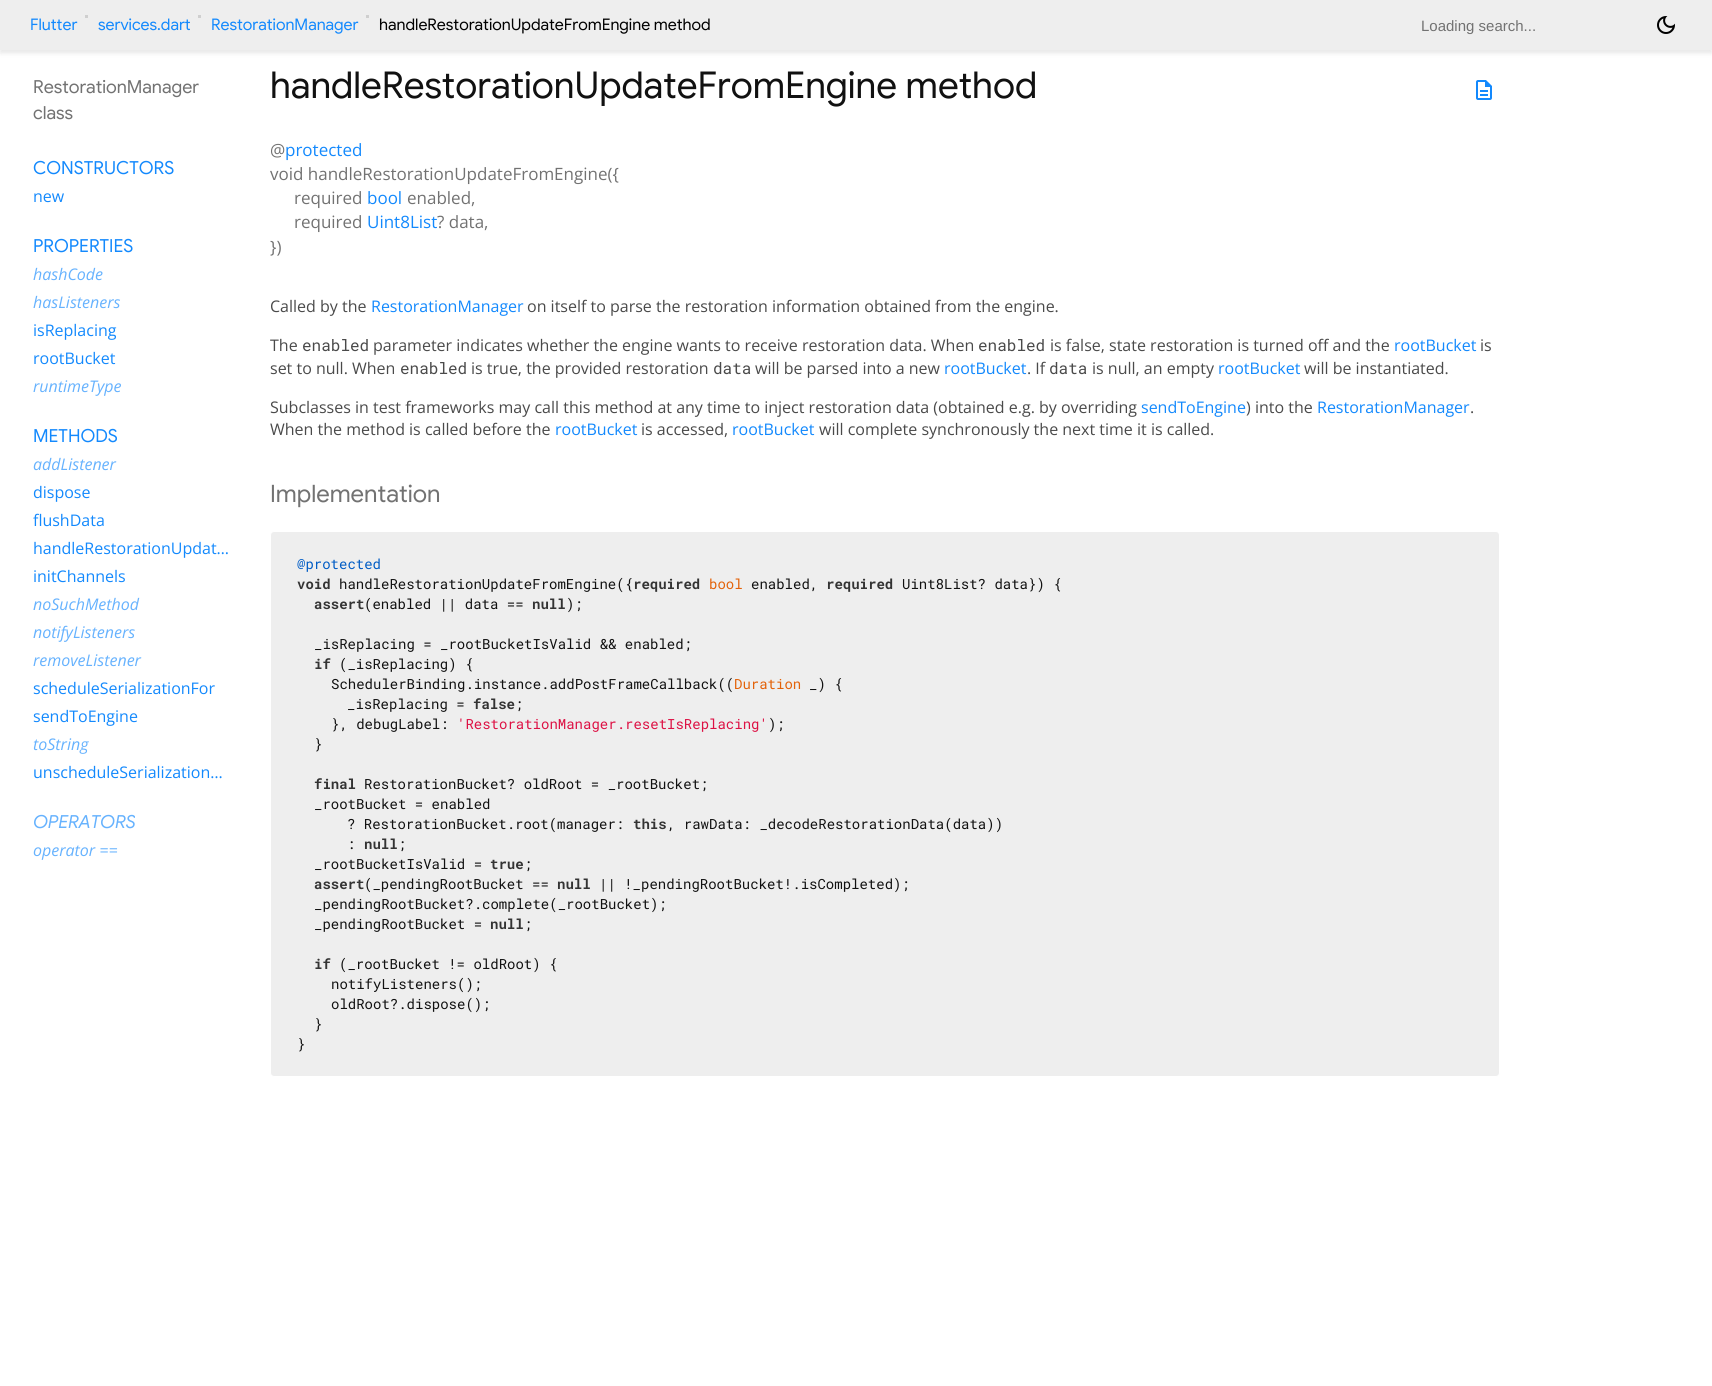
#include <cairo/cairo.h>
#include <math.h>
#include <stddef.h>

static cairo_t *cr;

static void use_color(int r, int g, int b) {
  cairo_set_source_rgb(cr, r / 255.0, g / 255.0, b / 255.0);
}

static void text(double x, double y, const char *s, const char *family, double size, int italic, int bold, int r, int g, int b) {
  cairo_select_font_face(cr, family, italic ? CAIRO_FONT_SLANT_ITALIC : CAIRO_FONT_SLANT_NORMAL,
    bold ? CAIRO_FONT_WEIGHT_BOLD : CAIRO_FONT_WEIGHT_NORMAL);
  cairo_set_font_size(cr, size);
  use_color(r, g, b);
  cairo_move_to(cr, x, y);
  cairo_show_text(cr, s);
}

static void box(double x, double y, double w, double h, int r, int g, int b) {
  use_color(r, g, b);
  cairo_rectangle(cr, x, y, w, h);
  cairo_fill(cr);
}

static void round_rect(double x, double y, double w, double h, double r) {
  cairo_new_sub_path(cr);
  cairo_arc(cr, x + w - r, y + h - r, r, 0, M_PI / 2);
  cairo_arc(cr, x + r, y + h - r, r, M_PI / 2, M_PI);
  cairo_arc(cr, x + r, y + r, r, M_PI, 1.5 * M_PI);
  cairo_arc(cr, x + w - r, y + r, r, 1.5 * M_PI, 2 * M_PI);
  cairo_close_path(cr);
}

static void shadow(double x, double y, double w, double h, double r, double blur, double alpha) {
  cairo_push_group_with_content(cr, CAIRO_CONTENT_ALPHA);
  cairo_set_operator(cr, CAIRO_OPERATOR_SOURCE);
  for (int i = 15; i >= -15 && fmin(w, h) + blur * i / 3 > 0; i -= 2) {
    double e = blur * i / 6;
    cairo_set_source_rgba(cr, 0, 0, 0, alpha * erfc((i - 1) / 8.5) / 2);
    round_rect(x - e, y - e, w + 2 * e, h + 2 * e, fmax(0, fmin(r + e + blur * .6, fmin(w, h) / 2 + e)));
    cairo_fill(cr);
  }
  cairo_pattern_t *soft = cairo_pop_group(cr);
  cairo_mask(cr, soft);
  cairo_pattern_destroy(soft);
}

static void picture(const char *path, double x, double y, double w, double h) {
  cairo_surface_t *image = cairo_image_surface_create_from_png(path);
  cairo_save(cr);
  cairo_set_source_surface(cr, image, x, y);
  cairo_rectangle(cr, x, y, w, h);
  cairo_fill(cr);
  cairo_restore(cr);
  cairo_surface_destroy(image);
}

static void draw(void) {
  use_color(255, 255, 255);
  cairo_paint(cr);
  use_color(0, 0, 0);
  shadow(0, 3, 1712, 50, 0, 2.5, 0.1);
  box(0, 0, 1712, 50, 238, 238, 238);
  box(85, 15, 3, 3, 207, 207, 207);
  box(198, 15, 3, 3, 207, 207, 207);
  box(366, 15, 3, 3, 207, 207, 207);
  picture("img_01.png", 1657, 16, 18, 18);
  picture("img_02.png", 1476, 80, 16, 20);
  use_color(238, 238, 238);
  round_rect(270.5, 531.5, 1229, 545, 3.5);
  cairo_fill_preserve(cr);
  use_color(255, 255, 255);
  cairo_set_line_width(cr, 1);
  cairo_stroke(cr);
  text(30, 30, "Flutter", "Google Sans", 16, 0, 0, 19, 137, 253);
  text(98, 30, "services.dart", "Google Sans", 16, 0, 0, 19, 137, 253);
  text(211, 30, "RestorationManager", "Google Sans", 16, 0, 0, 19, 137, 253);
  text(379, 30, "handleRestorationUpdateFromEngine method", "Google Sans", 16, 0, 0, 0, 0, 0);
  text(1421, 31, "Loading search...", "Liberation Sans", 15, 0, 0, 114, 114, 114);
  text(33, 93, "RestorationManager", "Google Sans", 18, 0, 0, 114, 114, 114);
  text(33, 119, "class", "Google Sans", 18, 0, 0, 114, 114, 114);
  text(33, 174, "CONSTRUCTORS", "Google Sans", 18, 0, 0, 19, 137, 253);
  text(33, 202, "new", "Open Sans", 16, 0, 0, 19, 137, 253);
  text(33, 252, "PROPERTIES", "Google Sans", 18, 0, 0, 19, 137, 253);
  text(33, 280, "hashCode", "Open Sans", 16, 1, 0, 102, 178, 254);
  text(33, 308, "hasListeners", "Open Sans", 16, 1, 0, 102, 178, 254);
  text(33, 336, "isReplacing", "Open Sans", 16, 0, 0, 19, 137, 253);
  text(33, 364, "rootBucket", "Open Sans", 16, 0, 0, 19, 137, 253);
  text(33, 392, "runtimeType", "Open Sans", 16, 1, 0, 102, 178, 254);
  text(33, 442, "METHODS", "Google Sans", 18, 0, 0, 19, 137, 253);
  text(33, 470, "addListener", "Open Sans", 16, 1, 0, 102, 178, 254);
  text(33, 498, "dispose", "Open Sans", 16, 0, 0, 19, 137, 253);
  text(33, 526, "flushData", "Open Sans", 16, 0, 0, 19, 137, 253);
  text(33, 554, "handleRestorationUpdat…", "Open Sans", 16, 0, 0, 19, 137, 253);
  text(33, 582, "initChannels", "Open Sans", 16, 0, 0, 19, 137, 253);
  text(33, 610, "noSuchMethod", "Open Sans", 16, 1, 0, 102, 178, 254);
  text(33, 638, "notifyListeners", "Open Sans", 16, 1, 0, 102, 178, 254);
  text(33, 666, "removeListener", "Open Sans", 16, 1, 0, 102, 178, 254);
  text(33, 694, "scheduleSerializationFor", "Open Sans", 16, 0, 0, 19, 137, 253);
  text(33, 722, "sendToEngine", "Open Sans", 16, 0, 0, 19, 137, 253);
  text(33, 750, "toString", "Open Sans", 16, 1, 0, 102, 178, 254);
  text(33, 778, "unscheduleSerialization…", "Open Sans", 16, 0, 0, 19, 137, 253);
  text(33, 828, "OPERATORS", "Google Sans", 18, 1, 0, 102, 178, 254);
  text(33, 856, "operator ==", "Open Sans", 16, 1, 0, 102, 178, 254);
  text(270, 98, "handleRestorationUpdateFromEngine method", "Google Sans", 37, 0, 0, 17, 17, 17);
  text(270, 156, "@", "Open Sans", 17, 0, 0, 114, 114, 114);
  text(285, 156, "protected", "Open Sans", 17, 0, 0, 19, 137, 253);
  text(270, 180, "void handleRestorationUpdateFromEngine({", "Open Sans", 17, 0, 0, 114, 114, 114);
  text(294, 204, "required", "Open Sans", 17, 0, 0, 114, 114, 114);
  text(367, 204, "bool", "Open Sans", 17, 0, 0, 19, 137, 253);
  text(407, 204, "enabled,", "Open Sans", 17, 0, 0, 114, 114, 114);
  text(294, 228, "required", "Open Sans", 17, 0, 0, 114, 114, 114);
  text(367, 228, "Uint8List", "Open Sans", 17, 0, 0, 19, 137, 253);
  text(437, 228, "? data,", "Open Sans", 17, 0, 0, 114, 114, 114);
  text(270, 253, "})", "Open Sans", 17, 0, 0, 114, 114, 114);
  text(270, 312, "Called by the", "Open Sans", 16, 0, 0, 74, 74, 74);
  text(371, 312, "RestorationManager", "Open Sans", 16, 0, 0, 19, 137, 253);
  text(527, 312, "on itself to parse the restoration information obtained from the engine.", "Open Sans", 16, 0, 0, 74, 74, 74);
  text(270, 351, "The", "Open Sans", 16, 0, 0, 74, 74, 74);
  text(302, 351, "enabled", "Roboto Mono", 16, 0, 0, 74, 74, 74);
  text(373, 351, "parameter indicates whether the engine wants to receive restoration data. When", "Open Sans", 16, 0, 0, 74, 74, 74);
  text(978, 351, "enabled", "Roboto Mono", 16, 0, 0, 74, 74, 74);
  text(1050, 351, "is false, state restoration is turned off and the", "Open Sans", 16, 0, 0, 74, 74, 74);
  text(1394, 351, "rootBucket", "Open Sans", 16, 0, 0, 19, 137, 253);
  text(1480, 351, "is", "Open Sans", 16, 0, 0, 74, 74, 74);
  text(270, 374, "set to null. When", "Open Sans", 16, 0, 0, 74, 74, 74);
  text(400, 374, "enabled", "Roboto Mono", 16, 0, 0, 74, 74, 74);
  text(471, 374, "is true, the provided restoration", "Open Sans", 16, 0, 0, 74, 74, 74);
  text(713, 374, "data", "Roboto Mono", 16, 0, 0, 74, 74, 74);
  text(755, 374, "will be parsed into a new", "Open Sans", 16, 0, 0, 74, 74, 74);
  text(944, 374, "rootBucket", "Open Sans", 16, 0, 0, 19, 137, 253);
  text(1027, 374, ". If", "Open Sans", 16, 0, 0, 74, 74, 74);
  text(1049, 374, "data", "Roboto Mono", 16, 0, 0, 74, 74, 74);
  text(1092, 374, "is null, an empty", "Open Sans", 16, 0, 0, 74, 74, 74);
  text(1218, 374, "rootBucket", "Open Sans", 16, 0, 0, 19, 137, 253);
  text(1304, 374, "will be instantiated.", "Open Sans", 16, 0, 0, 74, 74, 74);
  text(270, 413, "Subclasses in test frameworks may call this method at any time to inject restoration data (obtained e.g. by overriding", "Open Sans", 16, 0, 0, 74, 74, 74);
  text(1141, 413, "sendToEngine", "Open Sans", 16, 0, 0, 19, 137, 253);
  text(1246, 413, ") into the", "Open Sans", 16, 0, 0, 74, 74, 74);
  text(1317, 413, "RestorationManager", "Open Sans", 16, 0, 0, 19, 137, 253);
  text(1470, 413, ".", "Open Sans", 16, 0, 0, 74, 74, 74);
  text(270, 435, "When the method is called before the", "Open Sans", 16, 0, 0, 74, 74, 74);
  text(555, 435, "rootBucket", "Open Sans", 16, 0, 0, 19, 137, 253);
  text(641, 435, "is accessed,", "Open Sans", 16, 0, 0, 74, 74, 74);
  text(732, 435, "rootBucket", "Open Sans", 16, 0, 0, 19, 137, 253);
  text(819, 435, "will complete synchronously the next time it is called.", "Open Sans", 16, 0, 0, 74, 74, 74);
  text(270, 502, "Implementation", "Google Sans", 24, 0, 0, 114, 114, 114);
  text(297, 569, "@protected", "Roboto Mono", 14, 0, 0, 0, 92, 197);
  text(297, 589, "void", "Roboto Mono", 14, 0, 1, 51, 51, 51);
  text(339, 589, "handleRestorationUpdateFromEngine({", "Roboto Mono", 14, 0, 0, 17, 17, 17);
  text(633, 589, "required", "Roboto Mono", 14, 0, 1, 51, 51, 51);
  text(709, 589, "bool", "Roboto Mono", 14, 0, 0, 227, 98, 9);
  text(751, 589, "enabled,", "Roboto Mono", 14, 0, 0, 17, 17, 17);
  text(826, 589, "required", "Roboto Mono", 14, 0, 1, 51, 51, 51);
  text(902, 589, "Uint8List? data}) {", "Roboto Mono", 14, 0, 0, 17, 17, 17);
  text(314, 609, "assert", "Roboto Mono", 14, 0, 1, 51, 51, 51);
  text(364, 609, "(enabled || data ==", "Roboto Mono", 14, 0, 0, 17, 17, 17);
  text(532, 609, "null", "Roboto Mono", 14, 0, 1, 51, 51, 51);
  text(566, 609, ");", "Roboto Mono", 14, 0, 0, 17, 17, 17);
  text(314, 649, "_isReplacing = _rootBucketIsValid && enabled;", "Roboto Mono", 14, 0, 0, 17, 17, 17);
  text(314, 669, "if", "Roboto Mono", 14, 0, 1, 51, 51, 51);
  text(339, 669, "(_isReplacing) {", "Roboto Mono", 14, 0, 0, 17, 17, 17);
  text(331, 689, "SchedulerBinding.instance.addPostFrameCallback((", "Roboto Mono", 14, 0, 0, 17, 17, 17);
  text(734, 689, "Duration", "Roboto Mono", 14, 0, 0, 227, 98, 9);
  text(809, 689, "_) {", "Roboto Mono", 14, 0, 0, 17, 17, 17);
  text(347, 709, "_isReplacing =", "Roboto Mono", 14, 0, 0, 17, 17, 17);
  text(473, 709, "false", "Roboto Mono", 14, 0, 1, 51, 51, 51);
  text(515, 709, ";", "Roboto Mono", 14, 0, 0, 17, 17, 17);
  text(331, 729, "}, debugLabel:", "Roboto Mono", 14, 0, 0, 17, 17, 17);
  text(457, 729, "'RestorationManager.resetIsReplacing'", "Roboto Mono", 14, 0, 0, 221, 17, 68);
  text(768, 729, ");", "Roboto Mono", 14, 0, 0, 17, 17, 17);
  text(314, 749, "}", "Roboto Mono", 14, 0, 0, 17, 17, 17);
  text(314, 789, "final", "Roboto Mono", 14, 0, 1, 51, 51, 51);
  text(364, 789, "RestorationBucket? oldRoot = _rootBucket;", "Roboto Mono", 14, 0, 0, 17, 17, 17);
  text(314, 809, "_rootBucket = enabled", "Roboto Mono", 14, 0, 0, 17, 17, 17);
  text(347, 829, "? RestorationBucket.root(manager:", "Roboto Mono", 14, 0, 0, 17, 17, 17);
  text(633, 829, "this", "Roboto Mono", 14, 0, 1, 51, 51, 51);
  text(667, 829, ", rawData: _decodeRestorationData(data))", "Roboto Mono", 14, 0, 0, 17, 17, 17);
  text(347, 849, ":", "Roboto Mono", 14, 0, 0, 17, 17, 17);
  text(364, 849, "null", "Roboto Mono", 14, 0, 1, 51, 51, 51);
  text(398, 849, ";", "Roboto Mono", 14, 0, 0, 17, 17, 17);
  text(314, 869, "_rootBucketIsValid =", "Roboto Mono", 14, 0, 0, 17, 17, 17);
  text(490, 869, "true", "Roboto Mono", 14, 0, 1, 51, 51, 51);
  text(524, 869, ";", "Roboto Mono", 14, 0, 0, 17, 17, 17);
  text(314, 889, "assert", "Roboto Mono", 14, 0, 1, 51, 51, 51);
  text(364, 889, "(_pendingRootBucket ==", "Roboto Mono", 14, 0, 0, 17, 17, 17);
  text(557, 889, "null", "Roboto Mono", 14, 0, 1, 51, 51, 51);
  text(599, 889, "|| !_pendingRootBucket!.isCompleted);", "Roboto Mono", 14, 0, 0, 17, 17, 17);
  text(314, 909, "_pendingRootBucket?.complete(_rootBucket);", "Roboto Mono", 14, 0, 0, 17, 17, 17);
  text(314, 929, "_pendingRootBucket =", "Roboto Mono", 14, 0, 0, 17, 17, 17);
  text(490, 929, "null", "Roboto Mono", 14, 0, 1, 51, 51, 51);
  text(524, 929, ";", "Roboto Mono", 14, 0, 0, 17, 17, 17);
  text(314, 969, "if", "Roboto Mono", 14, 0, 1, 51, 51, 51);
  text(339, 969, "(_rootBucket != oldRoot) {", "Roboto Mono", 14, 0, 0, 17, 17, 17);
  text(331, 989, "notifyListeners();", "Roboto Mono", 14, 0, 0, 17, 17, 17);
  text(331, 1009, "oldRoot?.dispose();", "Roboto Mono", 14, 0, 0, 17, 17, 17);
  text(314, 1029, "}", "Roboto Mono", 14, 0, 0, 17, 17, 17);
  text(297, 1049, "}", "Roboto Mono", 14, 0, 0, 17, 17, 17);
}

int main(void) {
  cairo_surface_t *surface = cairo_image_surface_create(CAIRO_FORMAT_RGB24, 1712, 1386);
  cr = cairo_create(surface);
  cairo_font_options_t *options = cairo_font_options_create();
  cairo_font_options_set_hint_metrics(options, CAIRO_HINT_METRICS_OFF);
  cairo_font_options_set_hint_style(options, CAIRO_HINT_STYLE_NONE);
  cairo_set_font_options(cr, options);
  cairo_set_miter_limit(cr, 4);
  draw();
  cairo_surface_write_to_png(surface, "out.png");
  cairo_font_options_destroy(options);
  cairo_destroy(cr);
  cairo_surface_destroy(surface);
  return 0;
}
